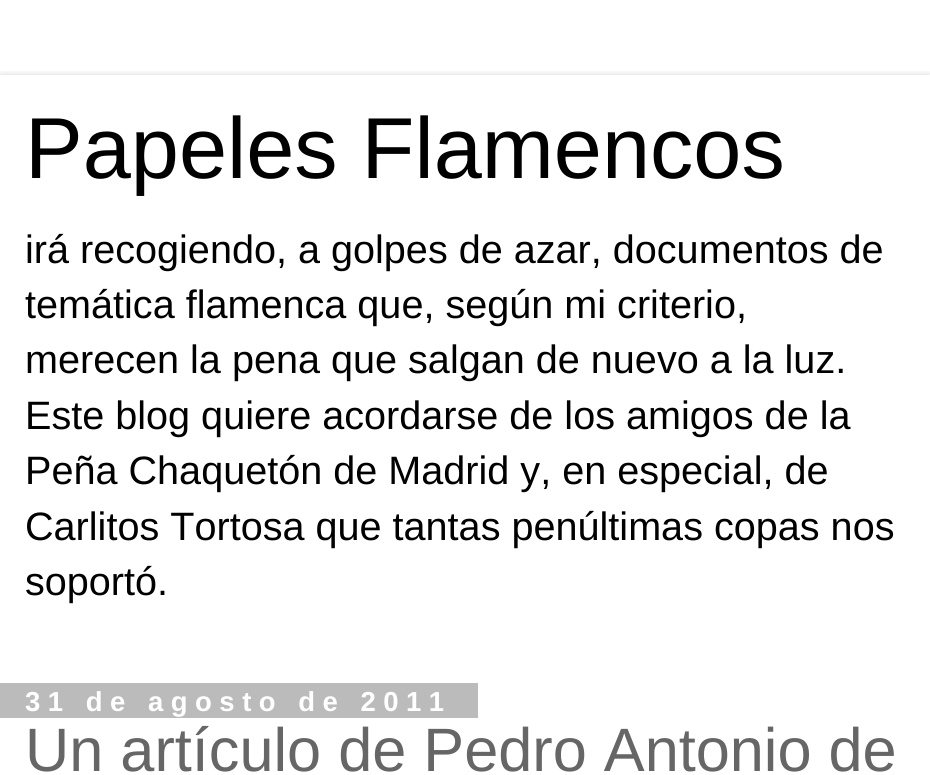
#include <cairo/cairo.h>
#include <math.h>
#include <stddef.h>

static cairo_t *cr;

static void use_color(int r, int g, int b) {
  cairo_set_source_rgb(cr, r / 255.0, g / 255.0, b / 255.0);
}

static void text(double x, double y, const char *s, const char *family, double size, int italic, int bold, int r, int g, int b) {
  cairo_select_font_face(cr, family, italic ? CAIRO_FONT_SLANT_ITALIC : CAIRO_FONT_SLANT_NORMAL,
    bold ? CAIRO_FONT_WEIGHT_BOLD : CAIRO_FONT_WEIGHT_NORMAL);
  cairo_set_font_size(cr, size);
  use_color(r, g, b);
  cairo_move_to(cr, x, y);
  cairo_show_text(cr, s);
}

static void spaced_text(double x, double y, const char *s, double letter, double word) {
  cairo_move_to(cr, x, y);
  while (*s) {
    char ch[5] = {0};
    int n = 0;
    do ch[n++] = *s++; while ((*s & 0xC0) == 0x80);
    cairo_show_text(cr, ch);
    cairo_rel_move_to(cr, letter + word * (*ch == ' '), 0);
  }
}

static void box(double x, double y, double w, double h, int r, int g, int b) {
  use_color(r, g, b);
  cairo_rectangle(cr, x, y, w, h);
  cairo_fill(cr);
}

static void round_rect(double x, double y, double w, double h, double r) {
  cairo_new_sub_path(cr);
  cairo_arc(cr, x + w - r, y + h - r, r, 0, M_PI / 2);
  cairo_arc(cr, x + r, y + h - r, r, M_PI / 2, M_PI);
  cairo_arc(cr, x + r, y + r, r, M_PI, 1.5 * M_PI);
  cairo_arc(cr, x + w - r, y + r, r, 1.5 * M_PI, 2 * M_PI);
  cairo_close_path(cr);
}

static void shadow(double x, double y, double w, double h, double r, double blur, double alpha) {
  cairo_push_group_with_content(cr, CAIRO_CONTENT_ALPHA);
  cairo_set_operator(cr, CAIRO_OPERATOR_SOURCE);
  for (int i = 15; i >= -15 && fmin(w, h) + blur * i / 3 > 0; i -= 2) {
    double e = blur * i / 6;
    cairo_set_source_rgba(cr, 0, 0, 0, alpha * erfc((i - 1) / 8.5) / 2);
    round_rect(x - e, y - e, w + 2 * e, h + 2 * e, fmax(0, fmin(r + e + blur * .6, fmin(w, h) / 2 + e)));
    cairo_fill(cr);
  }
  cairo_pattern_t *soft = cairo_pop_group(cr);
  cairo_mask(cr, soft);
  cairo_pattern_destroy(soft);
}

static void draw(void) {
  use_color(255, 255, 255);
  cairo_paint(cr);
  cairo_save(cr);
  cairo_rectangle(cr, 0, 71, 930, 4);
  cairo_clip(cr);
  use_color(0, 0, 0);
  shadow(0, 75, 930, 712, 0, 4, 0.15);
  cairo_restore(cr);
  box(0, 683, 478, 35, 187, 187, 187);
  text(25, 178, "Papeles Flamencos", "Liberation Sans", 86.5, 0, 0, 0, 0, 0);
  text(25, 263, "irá recogiendo, a golpes de azar, documentos de", "Liberation Sans", 39.6, 0, 0, 0, 0, 0);
  text(25, 318, "temática flamenca que, según mi criterio,", "Liberation Sans", 39.6, 0, 0, 0, 0, 0);
  text(25, 373, "merecen la pena que salgan de nuevo a la luz.", "Liberation Sans", 39.6, 0, 0, 0, 0, 0);
  text(25, 429, "Este blog quiere acordarse de los amigos de la", "Liberation Sans", 39.6, 0, 0, 0, 0, 0);
  text(25, 484, "Peña Chaquetón de Madrid y, en especial, de", "Liberation Sans", 39.6, 0, 0, 0, 0, 0);
  text(25, 540, "Carlitos Tortosa que tantas penúltimas copas nos", "Liberation Sans", 39.6, 0, 0, 0, 0, 0);
  text(25, 595, "soportó.", "Liberation Sans", 39.6, 0, 0, 0, 0, 0);
  cairo_select_font_face(cr, "Liberation Sans", CAIRO_FONT_SLANT_NORMAL, CAIRO_FONT_WEIGHT_BOLD);
  cairo_set_font_size(cr, 27.5);
  use_color(255, 255, 255);
  spaced_text(25, 711, "31 de agosto de 2011", 7.5, 0);
  text(25, 771, "Un artículo de Pedro Antonio de", "Liberation Sans", 61.25, 0, 0, 102, 102, 102);
}

int main(void) {
  cairo_surface_t *surface = cairo_image_surface_create(CAIRO_FORMAT_RGB24, 930, 775);
  cr = cairo_create(surface);
  cairo_font_options_t *options = cairo_font_options_create();
  cairo_font_options_set_hint_metrics(options, CAIRO_HINT_METRICS_OFF);
  cairo_font_options_set_hint_style(options, CAIRO_HINT_STYLE_NONE);
  cairo_set_font_options(cr, options);
  cairo_set_miter_limit(cr, 4);
  draw();
  cairo_surface_write_to_png(surface, "out.png");
  cairo_font_options_destroy(options);
  cairo_destroy(cr);
  cairo_surface_destroy(surface);
  return 0;
}
